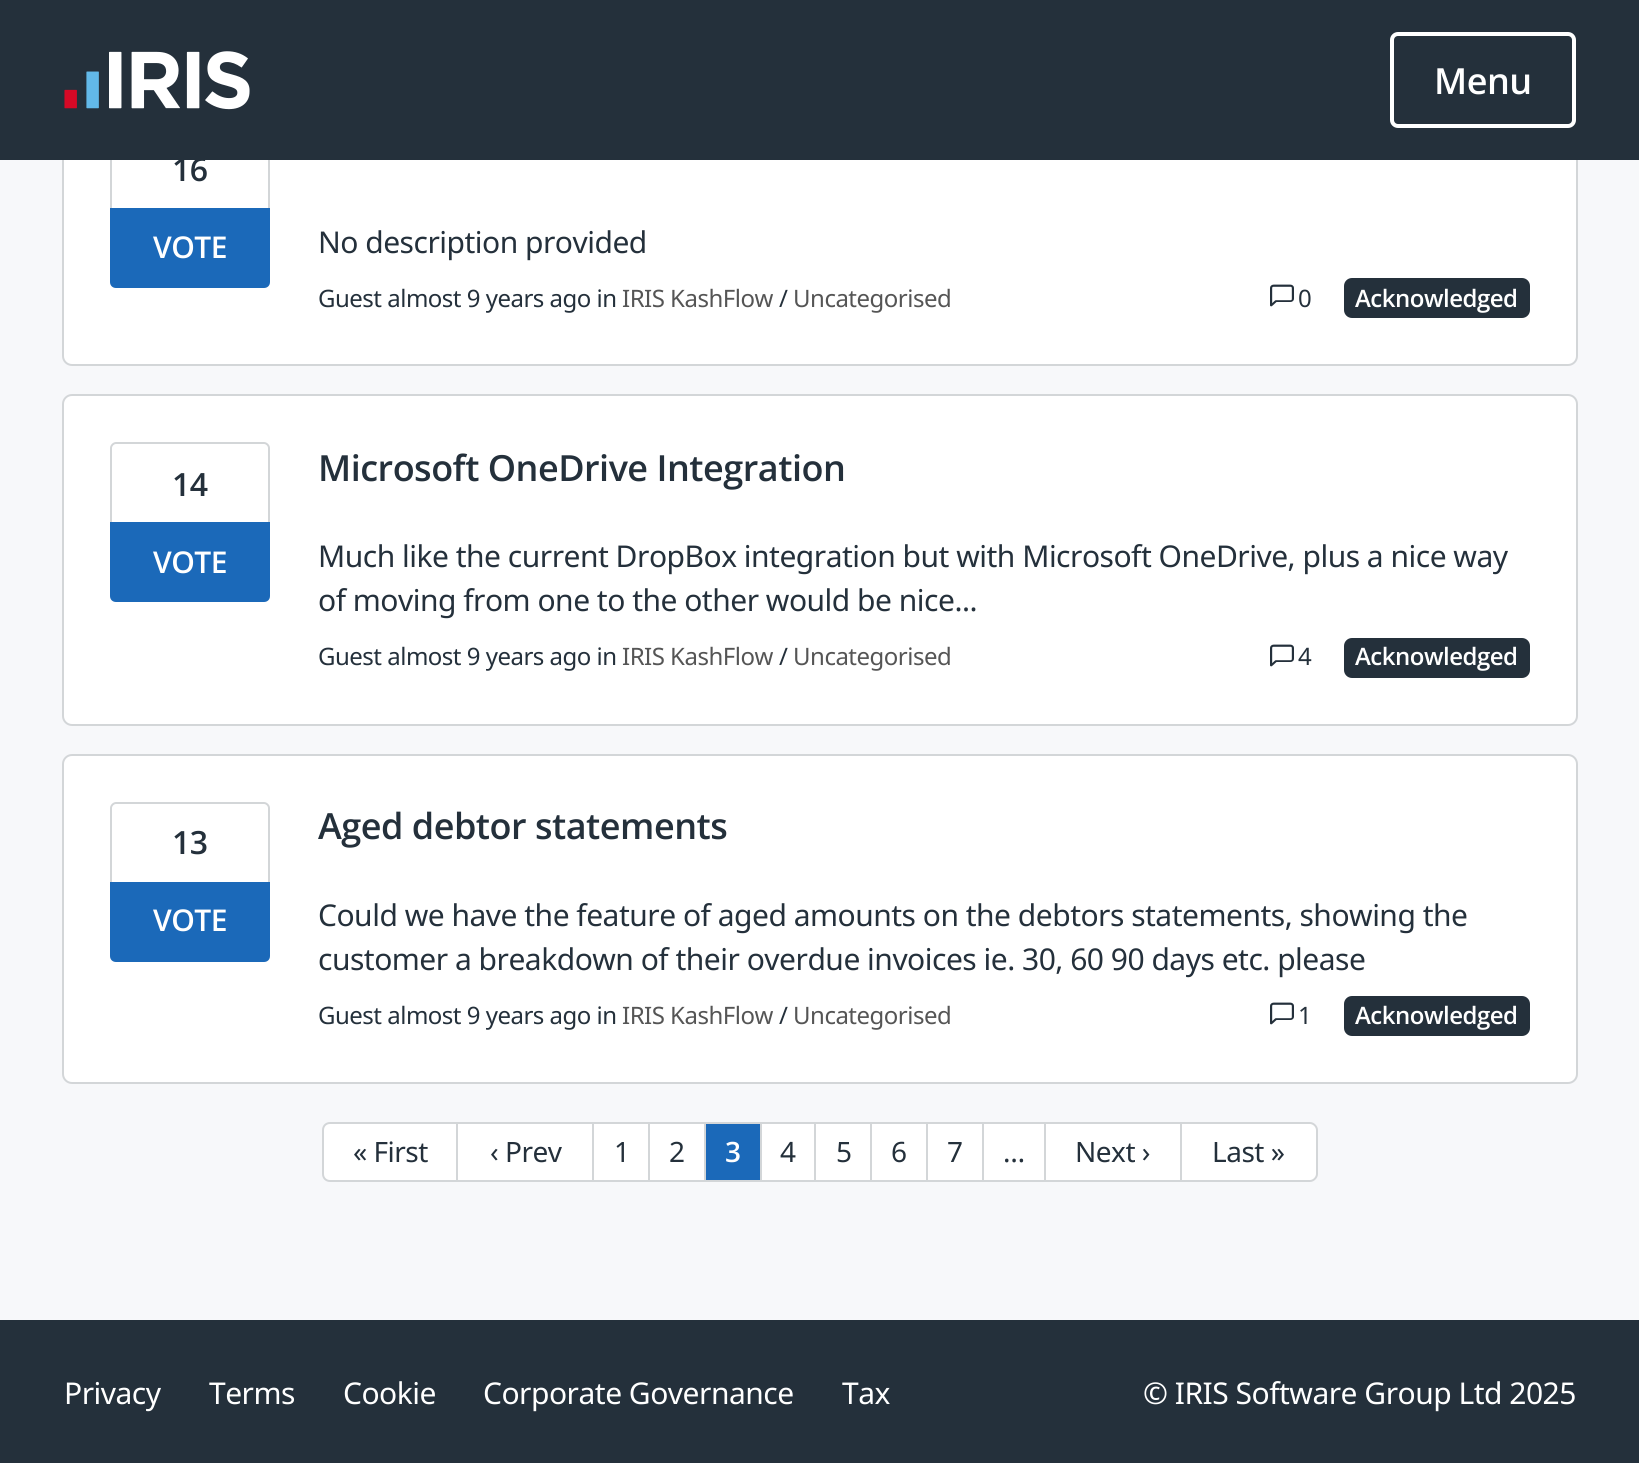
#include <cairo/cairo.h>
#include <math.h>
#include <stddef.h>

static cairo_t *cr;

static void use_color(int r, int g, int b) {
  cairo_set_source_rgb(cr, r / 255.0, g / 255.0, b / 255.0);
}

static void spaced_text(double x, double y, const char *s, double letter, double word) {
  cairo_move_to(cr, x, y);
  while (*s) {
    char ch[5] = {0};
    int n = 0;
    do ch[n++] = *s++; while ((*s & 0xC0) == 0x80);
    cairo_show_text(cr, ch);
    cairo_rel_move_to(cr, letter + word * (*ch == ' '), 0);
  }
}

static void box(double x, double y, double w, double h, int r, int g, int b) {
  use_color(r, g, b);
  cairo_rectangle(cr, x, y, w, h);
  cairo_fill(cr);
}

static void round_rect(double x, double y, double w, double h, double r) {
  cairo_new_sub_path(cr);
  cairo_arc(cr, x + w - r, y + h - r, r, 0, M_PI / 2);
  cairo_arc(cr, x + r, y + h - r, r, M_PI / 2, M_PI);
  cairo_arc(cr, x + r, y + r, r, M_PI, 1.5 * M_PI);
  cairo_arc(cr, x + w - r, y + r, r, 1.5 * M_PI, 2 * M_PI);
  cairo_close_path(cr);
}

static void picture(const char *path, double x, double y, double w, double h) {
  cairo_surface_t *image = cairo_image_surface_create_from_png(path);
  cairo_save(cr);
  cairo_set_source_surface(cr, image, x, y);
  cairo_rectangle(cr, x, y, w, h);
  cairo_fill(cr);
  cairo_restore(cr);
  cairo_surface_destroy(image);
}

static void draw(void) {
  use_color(247, 248, 250);
  cairo_paint(cr);
  use_color(255, 255, 255);
  round_rect(63, 81, 1514, 284, 9);
  cairo_fill_preserve(cr);
  use_color(211, 214, 216);
  cairo_stroke(cr);
  cairo_set_fill_rule(cr, CAIRO_FILL_RULE_EVEN_ODD);
  cairo_new_path(cr);
  cairo_move_to(cr, 116, 128);
  cairo_line_to(cr, 264, 128);
  cairo_curve_to(cr, 267, 128, 270, 131, 270, 134);
  cairo_line_to(cr, 270, 208);
  cairo_line_to(cr, 110, 208);
  cairo_line_to(cr, 110, 134);
  cairo_curve_to(cr, 110, 131, 113, 128, 116, 128);
  cairo_close_path(cr);
  cairo_move_to(cr, 116, 130);
  cairo_line_to(cr, 264, 130);
  cairo_curve_to(cr, 266, 130, 268, 132, 268, 134);
  cairo_line_to(cr, 268, 208);
  cairo_line_to(cr, 112, 208);
  cairo_line_to(cr, 112, 134);
  cairo_curve_to(cr, 112, 132, 114, 130, 116, 130);
  cairo_close_path(cr);
  cairo_fill(cr);
  box(0, 0, 1639, 160, 36, 48, 59);
  picture("img_01.png", 64, 51, 186, 59);
  round_rect(1392, 34, 182, 92, 6);
  use_color(255, 255, 255);
  cairo_set_line_width(cr, 4);
  cairo_stroke(cr);
  use_color(27, 105, 185);
  cairo_new_path(cr);
  cairo_move_to(cr, 110, 208);
  cairo_line_to(cr, 270, 208);
  cairo_line_to(cr, 270, 282);
  cairo_curve_to(cr, 270, 285.5, 267.5, 288, 264, 288);
  cairo_line_to(cr, 116, 288);
  cairo_curve_to(cr, 112.5, 288, 110, 285.5, 110, 282);
  cairo_close_path(cr);
  cairo_fill(cr);
  picture("img_02.png", 1270, 284, 24, 23);
  use_color(36, 48, 59);
  round_rect(1344, 278, 186, 40, 8);
  cairo_fill(cr);
  use_color(255, 255, 255);
  round_rect(63, 395, 1514, 330, 9);
  cairo_fill_preserve(cr);
  use_color(211, 214, 216);
  cairo_set_line_width(cr, 2);
  cairo_stroke(cr);
  cairo_new_path(cr);
  cairo_move_to(cr, 116, 442);
  cairo_line_to(cr, 264, 442);
  cairo_curve_to(cr, 267, 442, 270, 445, 270, 448);
  cairo_line_to(cr, 270, 522);
  cairo_line_to(cr, 110, 522);
  cairo_line_to(cr, 110, 448);
  cairo_curve_to(cr, 110, 445, 113, 442, 116, 442);
  cairo_close_path(cr);
  cairo_move_to(cr, 116, 444);
  cairo_line_to(cr, 264, 444);
  cairo_curve_to(cr, 266, 444, 268, 446, 268, 448);
  cairo_line_to(cr, 268, 522);
  cairo_line_to(cr, 112, 522);
  cairo_line_to(cr, 112, 448);
  cairo_curve_to(cr, 112, 446, 114, 444, 116, 444);
  cairo_close_path(cr);
  cairo_fill(cr);
  use_color(27, 105, 185);
  cairo_new_path(cr);
  cairo_move_to(cr, 110, 522);
  cairo_line_to(cr, 270, 522);
  cairo_line_to(cr, 270, 596);
  cairo_curve_to(cr, 270, 599.5, 267.5, 602, 264, 602);
  cairo_line_to(cr, 116, 602);
  cairo_curve_to(cr, 112.5, 602, 110, 599.5, 110, 596);
  cairo_close_path(cr);
  cairo_fill(cr);
  picture("img_02.png", 1270, 644, 24, 23);
  use_color(36, 48, 59);
  round_rect(1344, 638, 186, 40, 8);
  cairo_fill(cr);
  use_color(255, 255, 255);
  round_rect(63, 755, 1514, 328, 9);
  cairo_fill_preserve(cr);
  use_color(211, 214, 216);
  cairo_stroke(cr);
  cairo_new_path(cr);
  cairo_move_to(cr, 116, 802);
  cairo_line_to(cr, 264, 802);
  cairo_curve_to(cr, 267, 802, 270, 805, 270, 808);
  cairo_line_to(cr, 270, 882);
  cairo_line_to(cr, 110, 882);
  cairo_line_to(cr, 110, 808);
  cairo_curve_to(cr, 110, 805, 113, 802, 116, 802);
  cairo_close_path(cr);
  cairo_move_to(cr, 116, 804);
  cairo_line_to(cr, 264, 804);
  cairo_curve_to(cr, 266, 804, 268, 806, 268, 808);
  cairo_line_to(cr, 268, 882);
  cairo_line_to(cr, 112, 882);
  cairo_line_to(cr, 112, 808);
  cairo_curve_to(cr, 112, 806, 114, 804, 116, 804);
  cairo_close_path(cr);
  cairo_fill(cr);
  use_color(27, 105, 185);
  cairo_new_path(cr);
  cairo_move_to(cr, 110, 882);
  cairo_line_to(cr, 270, 882);
  cairo_line_to(cr, 270, 956);
  cairo_curve_to(cr, 270, 959.5, 267.5, 962, 264, 962);
  cairo_line_to(cr, 116, 962);
  cairo_curve_to(cr, 112.5, 962, 110, 959.5, 110, 956);
  cairo_close_path(cr);
  cairo_fill(cr);
  picture("img_02.png", 1270, 1002, 24, 23);
  use_color(36, 48, 59);
  round_rect(1344, 996, 186, 40, 8);
  cairo_fill(cr);
  use_color(255, 255, 255);
  cairo_new_path(cr);
  cairo_move_to(cr, 330, 1123);
  cairo_line_to(cr, 457, 1123);
  cairo_line_to(cr, 457, 1181);
  cairo_line_to(cr, 330, 1181);
  cairo_curve_to(cr, 326, 1181, 323, 1178, 323, 1174);
  cairo_line_to(cr, 323, 1130);
  cairo_curve_to(cr, 323, 1126, 326, 1123, 330, 1123);
  cairo_close_path(cr);
  cairo_fill_preserve(cr);
  use_color(211, 214, 216);
  cairo_stroke(cr);
  box(458, 1124, 134, 56, 255, 255, 255);
  box(458, 1122, 724, 2, 211, 214, 216);
  box(592, 1122, 2, 60, 211, 214, 216);
  box(458, 1180, 136, 2, 211, 214, 216);
  box(594, 1124, 54, 56, 255, 255, 255);
  box(648, 1122, 2, 60, 211, 214, 216);
  box(594, 1180, 56, 2, 211, 214, 216);
  box(650, 1124, 54, 56, 255, 255, 255);
  box(704, 1122, 2, 60, 211, 214, 216);
  box(650, 1180, 56, 2, 211, 214, 216);
  box(706, 1124, 54, 56, 27, 105, 185);
  box(760, 1122, 2, 60, 211, 214, 216);
  box(706, 1180, 56, 2, 211, 214, 216);
  box(762, 1124, 52, 56, 255, 255, 255);
  box(814, 1122, 2, 60, 211, 214, 216);
  box(762, 1180, 54, 2, 211, 214, 216);
  box(816, 1124, 54, 56, 255, 255, 255);
  box(870, 1122, 2, 60, 211, 214, 216);
  box(816, 1180, 56, 2, 211, 214, 216);
  box(872, 1124, 54, 56, 255, 255, 255);
  box(926, 1122, 2, 60, 211, 214, 216);
  box(872, 1180, 56, 2, 211, 214, 216);
  box(928, 1124, 54, 56, 255, 255, 255);
  box(982, 1122, 2, 60, 211, 214, 216);
  box(928, 1180, 56, 2, 211, 214, 216);
  box(984, 1124, 60, 56, 255, 255, 255);
  box(1044, 1122, 2, 60, 211, 214, 216);
  box(984, 1180, 62, 2, 211, 214, 216);
  box(1046, 1124, 134, 56, 255, 255, 255);
  box(1180, 1122, 2, 60, 211, 214, 216);
  box(1046, 1180, 136, 2, 211, 214, 216);
  use_color(255, 255, 255);
  cairo_new_path(cr);
  cairo_move_to(cr, 1182, 1124);
  cairo_line_to(cr, 1310, 1124);
  cairo_curve_to(cr, 1313.5, 1124, 1316, 1126.5, 1316, 1130);
  cairo_line_to(cr, 1316, 1174);
  cairo_curve_to(cr, 1316, 1177.5, 1313.5, 1180, 1310, 1180);
  cairo_line_to(cr, 1182, 1180);
  cairo_close_path(cr);
  cairo_fill(cr);
  use_color(211, 214, 216);
  cairo_new_path(cr);
  cairo_move_to(cr, 1182, 1122);
  cairo_line_to(cr, 1310, 1122);
  cairo_curve_to(cr, 1314, 1122, 1318, 1126, 1318, 1130);
  cairo_line_to(cr, 1318, 1174);
  cairo_curve_to(cr, 1318, 1178, 1314, 1182, 1310, 1182);
  cairo_line_to(cr, 1182, 1182);
  cairo_close_path(cr);
  cairo_move_to(cr, 1182, 1124);
  cairo_line_to(cr, 1310, 1124);
  cairo_curve_to(cr, 1313, 1124, 1316, 1127, 1316, 1130);
  cairo_line_to(cr, 1316, 1174);
  cairo_curve_to(cr, 1316, 1177, 1313, 1180, 1310, 1180);
  cairo_line_to(cr, 1182, 1180);
  cairo_close_path(cr);
  cairo_fill(cr);
  box(0, 1320, 1639, 143, 36, 48, 59);
  cairo_select_font_face(cr, "Open Sans SemiBold", CAIRO_FONT_SLANT_NORMAL, CAIRO_FONT_WEIGHT_NORMAL);
  cairo_set_font_size(cr, 36);
  use_color(255, 255, 255);
  spaced_text(1434, 94, "Menu", -0.5, 0);
  cairo_set_font_size(cr, 32);
  use_color(36, 48, 59);
  spaced_text(172, 181, "16", -0.5, 0);
  cairo_set_font_size(cr, 30);
  use_color(255, 255, 255);
  spaced_text(153, 258, "VOTE", -0.5, 0);
  cairo_select_font_face(cr, "Noto Sans", CAIRO_FONT_SLANT_NORMAL, CAIRO_FONT_WEIGHT_NORMAL);
  use_color(36, 48, 59);
  spaced_text(318, 253, "No description provided", -0.5, 0);
  cairo_set_font_size(cr, 24);
  spaced_text(318, 307, "Guest almost 9 years ago in", -0.5, 0);
  use_color(85, 85, 85);
  spaced_text(622, 307, "IRIS KashFlow", -0.5, 0);
  use_color(36, 48, 59);
  spaced_text(779, 307, "/", -0.5, 0);
  use_color(85, 85, 85);
  spaced_text(793, 307, "Uncategorised", -0.5, 0);
  use_color(36, 48, 59);
  spaced_text(1298, 307, "0", -0.5, 0);
  cairo_select_font_face(cr, "Open Sans SemiBold", CAIRO_FONT_SLANT_NORMAL, CAIRO_FONT_WEIGHT_NORMAL);
  use_color(255, 255, 255);
  spaced_text(1355, 307, "Acknowledged", -0.5, 0);
  cairo_set_font_size(cr, 32);
  use_color(36, 48, 59);
  spaced_text(172, 496, "14", -0.5, 0);
  cairo_set_font_size(cr, 30);
  use_color(255, 255, 255);
  spaced_text(153, 573, "VOTE", -0.5, 0);
  cairo_set_font_size(cr, 36);
  use_color(36, 48, 59);
  spaced_text(318, 481, "Microsoft OneDrive Integration", -0.5, 0);
  cairo_select_font_face(cr, "Noto Sans", CAIRO_FONT_SLANT_NORMAL, CAIRO_FONT_WEIGHT_NORMAL);
  cairo_set_font_size(cr, 30);
  spaced_text(318, 567, "Much like the current DropBox integration but with Microsoft OneDrive, plus a nice way", -0.5, 0);
  spaced_text(318, 611, "of moving from one to the other would be nice...", -0.5, 0);
  cairo_set_font_size(cr, 24);
  spaced_text(318, 665, "Guest almost 9 years ago in", -0.5, 0);
  use_color(85, 85, 85);
  spaced_text(622, 665, "IRIS KashFlow", -0.5, 0);
  use_color(36, 48, 59);
  spaced_text(779, 665, "/", -0.5, 0);
  use_color(85, 85, 85);
  spaced_text(793, 665, "Uncategorised", -0.5, 0);
  use_color(36, 48, 59);
  spaced_text(1298, 665, "4", -0.5, 0);
  cairo_select_font_face(cr, "Open Sans SemiBold", CAIRO_FONT_SLANT_NORMAL, CAIRO_FONT_WEIGHT_NORMAL);
  use_color(255, 255, 255);
  spaced_text(1355, 665, "Acknowledged", -0.5, 0);
  cairo_set_font_size(cr, 32);
  use_color(36, 48, 59);
  spaced_text(172, 854, "13", -0.5, 0);
  cairo_set_font_size(cr, 30);
  use_color(255, 255, 255);
  spaced_text(153, 931, "VOTE", -0.5, 0);
  cairo_set_font_size(cr, 36);
  use_color(36, 48, 59);
  spaced_text(318, 839, "Aged debtor statements", -0.5, 0);
  cairo_select_font_face(cr, "Noto Sans", CAIRO_FONT_SLANT_NORMAL, CAIRO_FONT_WEIGHT_NORMAL);
  cairo_set_font_size(cr, 30);
  spaced_text(318, 926, "Could we have the feature of aged amounts on the debtors statements, showing the", -0.5, 0);
  spaced_text(318, 970, "customer a breakdown of their overdue invoices ie. 30, 60 90 days etc. please", -0.5, 0);
  cairo_set_font_size(cr, 24);
  spaced_text(318, 1024, "Guest almost 9 years ago in", -0.5, 0);
  use_color(85, 85, 85);
  spaced_text(622, 1024, "IRIS KashFlow", -0.5, 0);
  use_color(36, 48, 59);
  spaced_text(779, 1024, "/", -0.5, 0);
  use_color(85, 85, 85);
  spaced_text(793, 1024, "Uncategorised", -0.5, 0);
  use_color(36, 48, 59);
  spaced_text(1298, 1024, "1", -0.5, 0);
  cairo_select_font_face(cr, "Open Sans SemiBold", CAIRO_FONT_SLANT_NORMAL, CAIRO_FONT_WEIGHT_NORMAL);
  use_color(255, 255, 255);
  spaced_text(1355, 1024, "Acknowledged", -0.5, 0);
  cairo_select_font_face(cr, "Noto Sans", CAIRO_FONT_SLANT_NORMAL, CAIRO_FONT_WEIGHT_NORMAL);
  cairo_set_font_size(cr, 28);
  use_color(36, 48, 59);
  spaced_text(353, 1162, "« First", -0.5, 0);
  spaced_text(490, 1162, "‹ Prev", -0.5, 0);
  spaced_text(614, 1162, "1", -0.5, 0);
  spaced_text(669, 1162, "2", -0.5, 0);
  cairo_select_font_face(cr, "Open Sans SemiBold", CAIRO_FONT_SLANT_NORMAL, CAIRO_FONT_WEIGHT_NORMAL);
  use_color(255, 255, 255);
  spaced_text(725, 1162, "3", -0.5, 0);
  cairo_select_font_face(cr, "Noto Sans", CAIRO_FONT_SLANT_NORMAL, CAIRO_FONT_WEIGHT_NORMAL);
  use_color(36, 48, 59);
  spaced_text(780, 1162, "4", -0.5, 0);
  spaced_text(836, 1162, "5", -0.5, 0);
  spaced_text(891, 1162, "6", -0.5, 0);
  spaced_text(947, 1162, "7", -0.5, 0);
  spaced_text(1003, 1162, "…", -0.5, 0);
  spaced_text(1075, 1162, "Next ›", -0.5, 0);
  spaced_text(1212, 1162, "Last »", -0.5, 0);
  cairo_set_font_size(cr, 30);
  use_color(255, 255, 255);
  spaced_text(64, 1404, "Privacy", -0.5, 0);
  spaced_text(209, 1404, "Terms", -0.5, 0);
  spaced_text(343, 1404, "Cookie", -0.5, 0);
  spaced_text(483, 1404, "Corporate Governance", -0.5, 0);
  spaced_text(842, 1404, "Tax", -0.5, 0);
  spaced_text(1143, 1404, "© IRIS Software Group Ltd 2025", -0.5, 0);
}

int main(void) {
  cairo_surface_t *surface = cairo_image_surface_create(CAIRO_FORMAT_RGB24, 1639, 1463);
  cr = cairo_create(surface);
  cairo_font_options_t *options = cairo_font_options_create();
  cairo_font_options_set_hint_metrics(options, CAIRO_HINT_METRICS_OFF);
  cairo_font_options_set_hint_style(options, CAIRO_HINT_STYLE_NONE);
  cairo_set_font_options(cr, options);
  cairo_set_miter_limit(cr, 4);
  draw();
  cairo_surface_write_to_png(surface, "out.png");
  cairo_font_options_destroy(options);
  cairo_destroy(cr);
  cairo_surface_destroy(surface);
  return 0;
}
